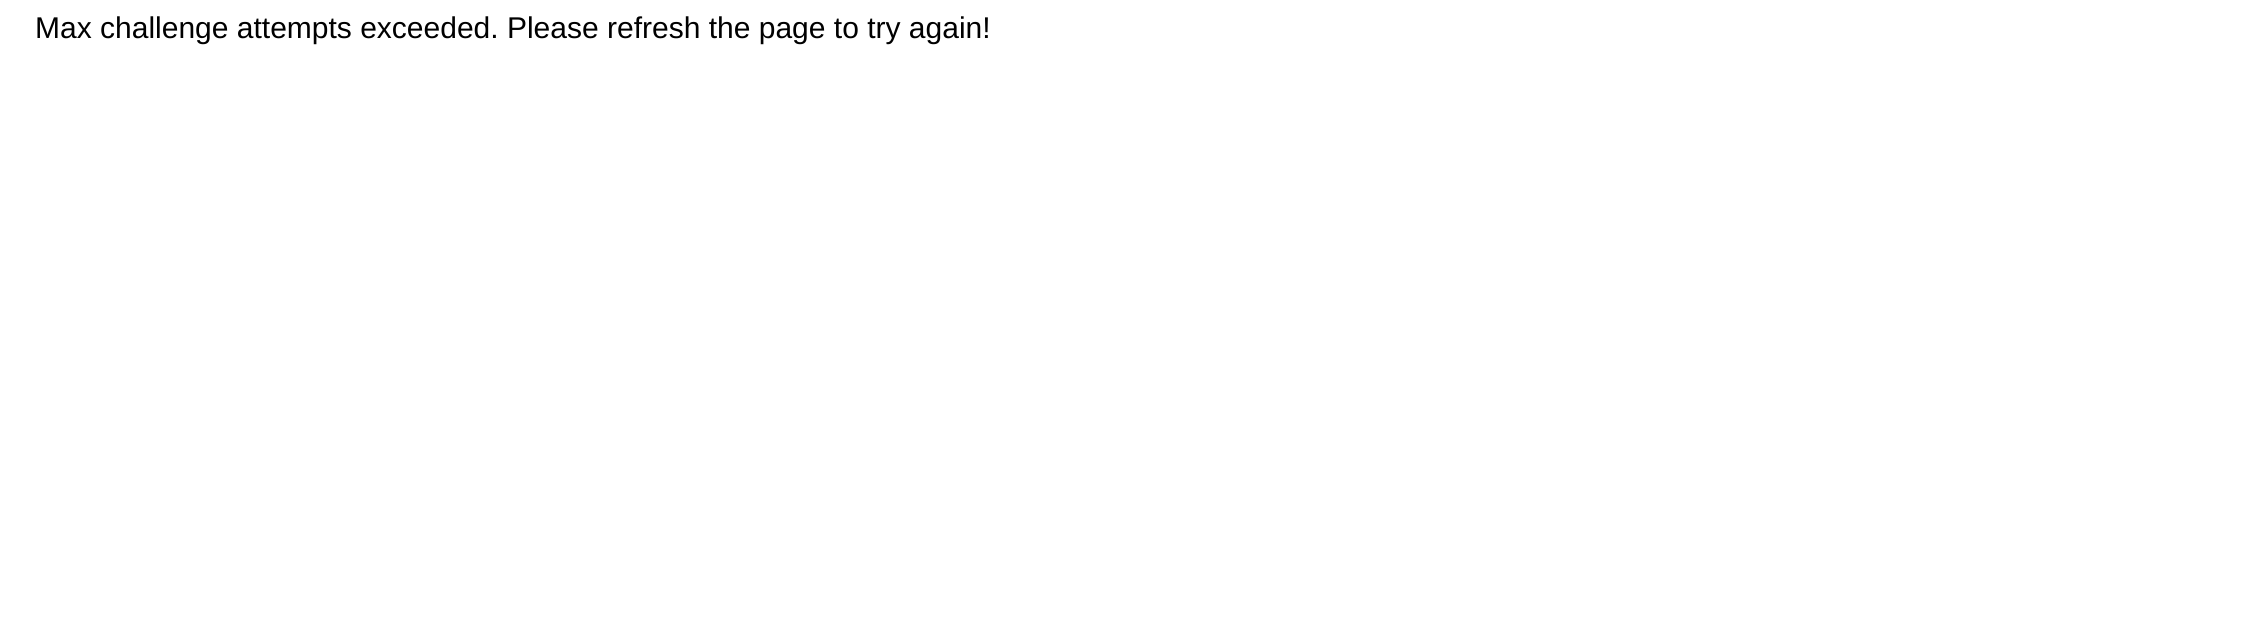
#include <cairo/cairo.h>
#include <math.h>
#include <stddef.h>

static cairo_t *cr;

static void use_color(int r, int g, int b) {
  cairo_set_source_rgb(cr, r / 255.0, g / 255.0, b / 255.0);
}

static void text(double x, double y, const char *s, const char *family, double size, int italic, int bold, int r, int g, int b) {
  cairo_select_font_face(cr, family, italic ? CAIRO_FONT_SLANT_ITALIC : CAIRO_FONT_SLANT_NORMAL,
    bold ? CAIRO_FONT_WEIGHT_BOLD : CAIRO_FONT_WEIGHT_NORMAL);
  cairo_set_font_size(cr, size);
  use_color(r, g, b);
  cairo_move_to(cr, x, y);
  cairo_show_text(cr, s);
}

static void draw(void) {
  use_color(255, 255, 255);
  cairo_paint(cr);
  text(35, 38, "Max challenge attempts exceeded. Please refresh the page to try again!", "Liberation Sans", 30, 0, 0, 0, 0, 0);
}

int main(void) {
  cairo_surface_t *surface = cairo_image_surface_create(CAIRO_FORMAT_RGB24, 2255, 629);
  cr = cairo_create(surface);
  cairo_font_options_t *options = cairo_font_options_create();
  cairo_font_options_set_hint_metrics(options, CAIRO_HINT_METRICS_OFF);
  cairo_font_options_set_hint_style(options, CAIRO_HINT_STYLE_NONE);
  cairo_set_font_options(cr, options);
  cairo_set_miter_limit(cr, 4);
  draw();
  cairo_surface_write_to_png(surface, "out.png");
  cairo_font_options_destroy(options);
  cairo_destroy(cr);
  cairo_surface_destroy(surface);
  return 0;
}
